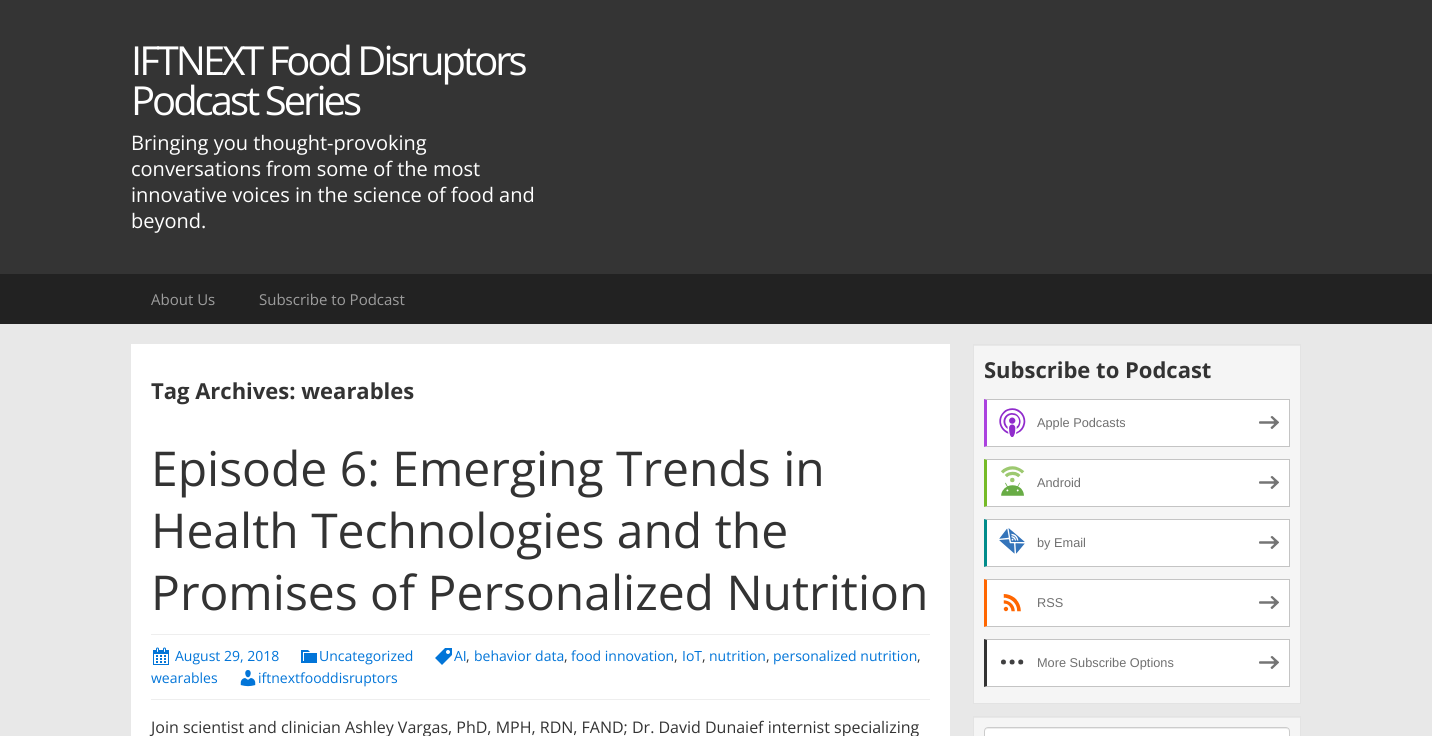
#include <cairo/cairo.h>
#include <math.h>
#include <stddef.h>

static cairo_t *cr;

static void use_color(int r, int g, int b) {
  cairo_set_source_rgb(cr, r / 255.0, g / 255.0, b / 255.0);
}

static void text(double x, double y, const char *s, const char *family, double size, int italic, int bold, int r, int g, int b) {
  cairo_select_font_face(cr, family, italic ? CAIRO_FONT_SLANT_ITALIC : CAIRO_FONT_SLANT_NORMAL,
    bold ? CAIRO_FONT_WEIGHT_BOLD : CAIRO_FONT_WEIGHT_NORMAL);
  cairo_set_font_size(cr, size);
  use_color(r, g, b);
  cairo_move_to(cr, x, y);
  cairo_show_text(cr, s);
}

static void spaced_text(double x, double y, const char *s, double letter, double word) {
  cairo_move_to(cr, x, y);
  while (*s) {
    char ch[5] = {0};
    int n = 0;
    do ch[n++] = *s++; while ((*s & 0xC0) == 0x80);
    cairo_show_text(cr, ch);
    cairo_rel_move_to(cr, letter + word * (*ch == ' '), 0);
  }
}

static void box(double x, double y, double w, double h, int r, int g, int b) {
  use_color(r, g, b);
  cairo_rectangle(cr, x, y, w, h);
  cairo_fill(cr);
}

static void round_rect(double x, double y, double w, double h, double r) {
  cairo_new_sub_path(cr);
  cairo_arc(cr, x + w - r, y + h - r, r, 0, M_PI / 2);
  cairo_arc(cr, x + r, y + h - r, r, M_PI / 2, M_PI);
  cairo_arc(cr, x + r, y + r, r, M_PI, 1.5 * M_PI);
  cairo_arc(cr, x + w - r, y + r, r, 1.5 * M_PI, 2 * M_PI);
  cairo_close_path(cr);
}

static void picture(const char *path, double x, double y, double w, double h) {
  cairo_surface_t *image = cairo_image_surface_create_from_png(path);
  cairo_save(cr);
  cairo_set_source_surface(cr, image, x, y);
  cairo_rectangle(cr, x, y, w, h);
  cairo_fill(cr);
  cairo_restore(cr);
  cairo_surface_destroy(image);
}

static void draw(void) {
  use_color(232, 232, 232);
  cairo_paint(cr);
  box(0, 0, 1432, 274, 52, 52, 52);
  box(0, 274, 1432, 50, 34, 34, 34);
  box(131, 344, 819, 392, 255, 255, 255);
  box(151, 634, 779, 1, 238, 238, 238);
  picture("img_01.png", 435, 648, 17, 17);
  picture("img_02.png", 153, 647, 16, 18);
  picture("img_03.png", 301, 650, 16, 13);
  picture("img_04.png", 240, 670, 16, 17);
  box(151, 699, 779, 1, 238, 238, 238);
  box(974, 346, 326, 357, 245, 245, 245);
  cairo_rectangle(cr, 973.5, 344.5, 327, 359);
  use_color(227, 227, 227);
  cairo_set_line_width(cr, 1);
  cairo_stroke(cr);
  box(987, 400, 302, 46, 255, 255, 255);
  use_color(196, 196, 196);
  cairo_new_path(cr);
  cairo_move_to(cr, 984, 399);
  cairo_line_to(cr, 1290, 399);
  cairo_line_to(cr, 1289, 400);
  cairo_line_to(cr, 987, 400);
  cairo_close_path(cr);
  cairo_fill(cr);
  box(1289, 399, 1, 48, 196, 196, 196);
  cairo_new_path(cr);
  cairo_move_to(cr, 1290, 447);
  cairo_line_to(cr, 984, 447);
  cairo_line_to(cr, 987, 446);
  cairo_line_to(cr, 1289, 446);
  cairo_close_path(cr);
  cairo_fill(cr);
  use_color(171, 66, 223);
  cairo_new_path(cr);
  cairo_move_to(cr, 984, 447);
  cairo_line_to(cr, 984, 399);
  cairo_line_to(cr, 987, 400);
  cairo_line_to(cr, 987, 446);
  cairo_close_path(cr);
  cairo_fill(cr);
  picture("img_05.png", 999, 408, 27, 29);
  picture("img_06.png", 1259, 416, 20, 13);
  box(987, 460, 302, 46, 255, 255, 255);
  use_color(196, 196, 196);
  cairo_new_path(cr);
  cairo_move_to(cr, 984, 459);
  cairo_line_to(cr, 1290, 459);
  cairo_line_to(cr, 1289, 460);
  cairo_line_to(cr, 987, 460);
  cairo_close_path(cr);
  cairo_fill(cr);
  box(1289, 459, 1, 48, 196, 196, 196);
  cairo_new_path(cr);
  cairo_move_to(cr, 1290, 507);
  cairo_line_to(cr, 984, 507);
  cairo_line_to(cr, 987, 506);
  cairo_line_to(cr, 1289, 506);
  cairo_close_path(cr);
  cairo_fill(cr);
  use_color(117, 186, 38);
  cairo_new_path(cr);
  cairo_move_to(cr, 984, 507);
  cairo_line_to(cr, 984, 459);
  cairo_line_to(cr, 987, 460);
  cairo_line_to(cr, 987, 506);
  cairo_close_path(cr);
  cairo_fill(cr);
  picture("img_07.png", 1001, 466, 24, 30);
  picture("img_06.png", 1259, 476, 20, 13);
  box(987, 520, 302, 46, 255, 255, 255);
  use_color(196, 196, 196);
  cairo_new_path(cr);
  cairo_move_to(cr, 984, 519);
  cairo_line_to(cr, 1290, 519);
  cairo_line_to(cr, 1289, 520);
  cairo_line_to(cr, 987, 520);
  cairo_close_path(cr);
  cairo_fill(cr);
  box(1289, 519, 1, 48, 196, 196, 196);
  cairo_new_path(cr);
  cairo_move_to(cr, 1290, 567);
  cairo_line_to(cr, 984, 567);
  cairo_line_to(cr, 987, 566);
  cairo_line_to(cr, 1289, 566);
  cairo_close_path(cr);
  cairo_fill(cr);
  use_color(1, 140, 139);
  cairo_new_path(cr);
  cairo_move_to(cr, 984, 567);
  cairo_line_to(cr, 984, 519);
  cairo_line_to(cr, 987, 520);
  cairo_line_to(cr, 987, 566);
  cairo_close_path(cr);
  cairo_fill(cr);
  picture("img_08.png", 999, 528, 26, 26);
  picture("img_06.png", 1259, 536, 20, 13);
  box(987, 580, 302, 46, 255, 255, 255);
  use_color(196, 196, 196);
  cairo_new_path(cr);
  cairo_move_to(cr, 984, 579);
  cairo_line_to(cr, 1290, 579);
  cairo_line_to(cr, 1289, 580);
  cairo_line_to(cr, 987, 580);
  cairo_close_path(cr);
  cairo_fill(cr);
  box(1289, 579, 1, 48, 196, 196, 196);
  cairo_new_path(cr);
  cairo_move_to(cr, 1290, 627);
  cairo_line_to(cr, 984, 627);
  cairo_line_to(cr, 987, 626);
  cairo_line_to(cr, 1289, 626);
  cairo_close_path(cr);
  cairo_fill(cr);
  use_color(255, 102, 0);
  cairo_new_path(cr);
  cairo_move_to(cr, 984, 627);
  cairo_line_to(cr, 984, 579);
  cairo_line_to(cr, 987, 580);
  cairo_line_to(cr, 987, 626);
  cairo_close_path(cr);
  cairo_fill(cr);
  picture("img_09.png", 1003, 594, 18, 18);
  picture("img_06.png", 1259, 596, 20, 13);
  box(987, 640, 302, 46, 255, 255, 255);
  use_color(196, 196, 196);
  cairo_new_path(cr);
  cairo_move_to(cr, 984, 639);
  cairo_line_to(cr, 1290, 639);
  cairo_line_to(cr, 1289, 640);
  cairo_line_to(cr, 987, 640);
  cairo_close_path(cr);
  cairo_fill(cr);
  box(1289, 639, 1, 48, 196, 196, 196);
  cairo_new_path(cr);
  cairo_move_to(cr, 1290, 687);
  cairo_line_to(cr, 984, 687);
  cairo_line_to(cr, 987, 686);
  cairo_line_to(cr, 1289, 686);
  cairo_close_path(cr);
  cairo_fill(cr);
  use_color(51, 51, 51);
  cairo_new_path(cr);
  cairo_move_to(cr, 984, 687);
  cairo_line_to(cr, 984, 639);
  cairo_line_to(cr, 987, 640);
  cairo_line_to(cr, 987, 686);
  cairo_close_path(cr);
  cairo_fill(cr);
  picture("img_10.png", 1001, 659, 23, 6);
  picture("img_06.png", 1259, 656, 20, 13);
  box(974, 718, 326, 18, 245, 245, 245);
  cairo_rectangle(cr, 973.5, 716.5, 327, 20);
  use_color(227, 227, 227);
  cairo_stroke(cr);
  use_color(255, 255, 255);
  round_rect(984, 727, 306, 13, 4);
  cairo_fill(cr);
  use_color(236, 236, 236);
  cairo_new_path(cr);
  cairo_move_to(cr, 988, 729);
  cairo_line_to(cr, 1286, 729);
  cairo_curve_to(cr, 1288, 729, 1289, 730, 1289, 732);
  cairo_line_to(cr, 1288, 729);
  cairo_line_to(cr, 1287, 728);
  cairo_line_to(cr, 988, 728);
  cairo_curve_to(cr, 986, 728, 985, 730, 985, 732);
  cairo_curve_to(cr, 985, 730, 986, 729, 988, 729);
  cairo_close_path(cr);
  cairo_fill(cr);
  round_rect(984.5, 727.5, 305, 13, 3.5);
  use_color(204, 204, 204);
  cairo_stroke(cr);
  cairo_select_font_face(cr, "Open Sans", CAIRO_FONT_SLANT_NORMAL, CAIRO_FONT_WEIGHT_NORMAL);
  cairo_set_font_size(cr, 40);
  use_color(255, 255, 255);
  spaced_text(131, 75, "IFTNEXT Food Disruptors", -3, 0);
  spaced_text(131, 115, "Podcast Series", -3, 0);
  text(131, 150, "Bringing you thought-provoking", "Open Sans", 20, 0, 0, 255, 255, 255);
  text(131, 176, "conversations from some of the most", "Open Sans", 20, 0, 0, 255, 255, 255);
  text(131, 202, "innovative voices in the science of food and", "Open Sans", 20, 0, 0, 255, 255, 255);
  text(131, 228, "beyond.", "Open Sans", 20, 0, 0, 255, 255, 255);
  text(151, 305, "About Us", "Open Sans", 15, 0, 0, 157, 157, 157);
  text(259, 305, "Subscribe to Podcast", "Open Sans", 15, 0, 0, 157, 157, 157);
  text(151, 399, "Tag Archives: wearables", "Open Sans", 22, 0, 1, 51, 51, 51);
  text(151, 486, "Episode 6: Emerging Trends in", "Open Sans", 48, 0, 0, 51, 51, 51);
  text(151, 548, "Health Technologies and the", "Open Sans", 48, 0, 0, 51, 51, 51);
  text(151, 610, "Promises of Personalized Nutrition", "Open Sans", 48, 0, 0, 51, 51, 51);
  text(454, 661, "AI", "Open Sans", 14, 0, 0, 2, 117, 216);
  text(466, 661, ",", "Open Sans", 14, 0, 0, 51, 51, 51);
  text(474, 661, "behavior data", "Open Sans", 14, 0, 0, 2, 117, 216);
  text(564, 661, ",", "Open Sans", 14, 0, 0, 51, 51, 51);
  text(571, 661, "food innovation", "Open Sans", 14, 0, 0, 2, 117, 216);
  text(674, 661, ",", "Open Sans", 14, 0, 0, 51, 51, 51);
  text(682, 661, "IoT", "Open Sans", 14, 0, 0, 2, 117, 216);
  text(702, 661, ",", "Open Sans", 14, 0, 0, 51, 51, 51);
  text(709, 661, "nutrition", "Open Sans", 14, 0, 0, 2, 117, 216);
  text(766, 661, ",", "Open Sans", 14, 0, 0, 51, 51, 51);
  text(773, 661, "personalized nutrition", "Open Sans", 14, 0, 0, 2, 117, 216);
  text(917, 661, ",", "Open Sans", 14, 0, 0, 51, 51, 51);
  text(151, 683, "wearables", "Open Sans", 14, 0, 0, 2, 117, 216);
  text(175, 661, "August 29, 2018", "Open Sans", 14, 0, 0, 2, 117, 216);
  text(319, 661, "Uncategorized", "Open Sans", 14, 0, 0, 2, 117, 216);
  text(258, 683, "iftnextfooddisruptors", "Open Sans", 14, 0, 0, 2, 117, 216);
  text(151, 733, "Join scientist and clinician Ashley Vargas, PhD, MPH, RDN, FAND; Dr. David Dunaief internist specializing", "Open Sans", 16, 0, 0, 51, 51, 51);
  text(984, 378, "Subscribe to Podcast", "Open Sans", 22, 0, 1, 51, 51, 51);
  text(1037, 427, "Apple Podcasts", "Liberation Sans", 12.75, 0, 0, 112, 112, 112);
  text(1037, 487, "Android", "Liberation Sans", 12.75, 0, 0, 112, 112, 112);
  text(1037, 547, "by Email", "Liberation Sans", 12.75, 0, 0, 112, 112, 112);
  text(1037, 607, "RSS", "Liberation Sans", 12.75, 0, 0, 112, 112, 112);
  text(1037, 667, "More Subscribe Options", "Liberation Sans", 12.75, 0, 0, 112, 112, 112);
}

int main(void) {
  cairo_surface_t *surface = cairo_image_surface_create(CAIRO_FORMAT_RGB24, 1432, 736);
  cr = cairo_create(surface);
  cairo_font_options_t *options = cairo_font_options_create();
  cairo_font_options_set_hint_metrics(options, CAIRO_HINT_METRICS_OFF);
  cairo_font_options_set_hint_style(options, CAIRO_HINT_STYLE_NONE);
  cairo_set_font_options(cr, options);
  cairo_set_miter_limit(cr, 4);
  draw();
  cairo_surface_write_to_png(surface, "out.png");
  cairo_font_options_destroy(options);
  cairo_destroy(cr);
  cairo_surface_destroy(surface);
  return 0;
}
